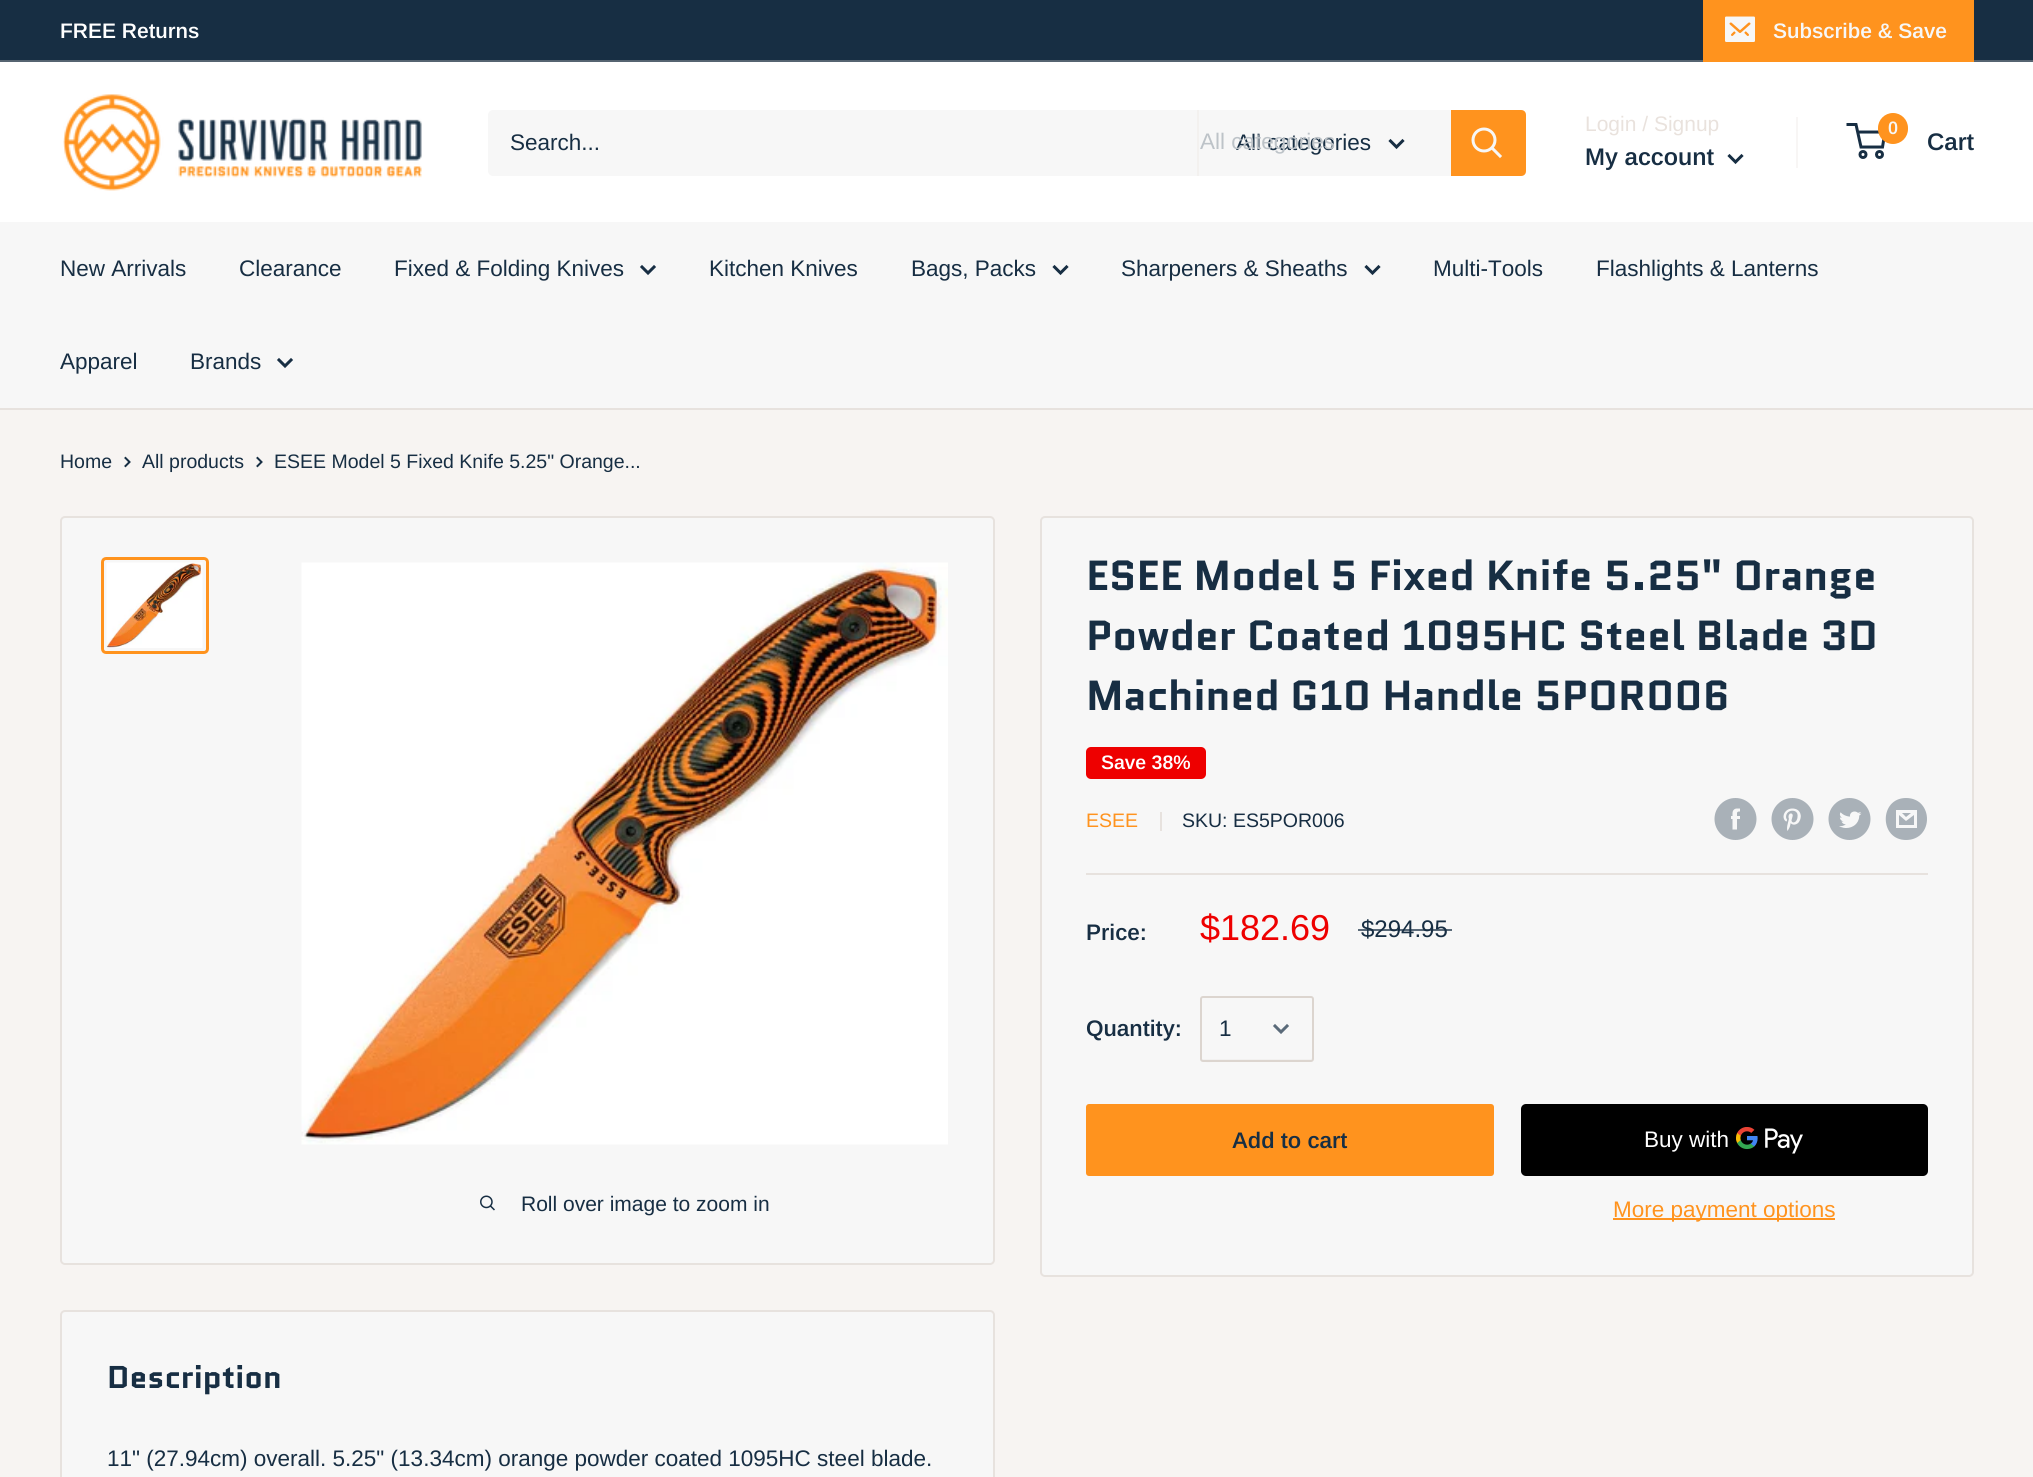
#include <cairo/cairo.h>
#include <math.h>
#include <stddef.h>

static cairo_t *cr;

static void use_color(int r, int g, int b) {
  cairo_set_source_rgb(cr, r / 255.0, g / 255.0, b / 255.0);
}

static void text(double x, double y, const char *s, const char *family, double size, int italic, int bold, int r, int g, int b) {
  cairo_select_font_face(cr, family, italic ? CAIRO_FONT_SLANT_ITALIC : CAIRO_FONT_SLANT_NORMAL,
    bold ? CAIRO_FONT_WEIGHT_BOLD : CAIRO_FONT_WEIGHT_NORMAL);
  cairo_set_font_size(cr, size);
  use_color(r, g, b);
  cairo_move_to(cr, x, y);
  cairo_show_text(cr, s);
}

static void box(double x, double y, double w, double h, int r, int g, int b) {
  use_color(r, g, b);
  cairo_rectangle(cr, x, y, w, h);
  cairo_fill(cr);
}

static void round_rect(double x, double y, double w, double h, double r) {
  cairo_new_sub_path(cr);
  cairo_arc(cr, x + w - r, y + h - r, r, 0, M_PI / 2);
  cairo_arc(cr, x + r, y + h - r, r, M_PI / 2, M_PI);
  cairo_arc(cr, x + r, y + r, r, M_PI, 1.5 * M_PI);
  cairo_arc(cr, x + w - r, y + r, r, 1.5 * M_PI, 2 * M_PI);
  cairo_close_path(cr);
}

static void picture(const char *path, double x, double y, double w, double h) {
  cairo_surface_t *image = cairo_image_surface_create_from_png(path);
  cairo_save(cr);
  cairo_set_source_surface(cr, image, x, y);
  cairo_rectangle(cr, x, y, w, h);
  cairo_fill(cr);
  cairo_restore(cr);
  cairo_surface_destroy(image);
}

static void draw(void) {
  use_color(247, 244, 242);
  cairo_paint(cr);
  box(0, 0, 2033, 60, 23, 46, 67);
  box(0, 60, 2033, 2, 86, 100, 113);
  box(1703, 0, 271, 62, 255, 147, 30);
  picture("img_01.png", 1725, 16, 30, 26);
  box(0, 62, 2033, 160, 255, 255, 255);
  picture("img_02.png", 63, 94, 359, 97);
  use_color(247, 247, 247);
  round_rect(488, 110, 1038, 66, 5);
  cairo_fill(cr);
  box(1197, 110, 2, 66, 243, 241, 239);
  cairo_new_path(cr);
  cairo_move_to(cr, 1402.5, 141);
  cairo_line_to(cr, 1396.5, 147);
  cairo_line_to(cr, 1390.5, 141);
  use_color(23, 46, 67);
  cairo_set_line_width(cr, 3);
  cairo_set_line_cap(cr, CAIRO_LINE_CAP_SQUARE);
  cairo_stroke(cr);
  use_color(255, 147, 30);
  cairo_new_path(cr);
  cairo_move_to(cr, 1451, 110);
  cairo_line_to(cr, 1521, 110);
  cairo_curve_to(cr, 1524, 110, 1526, 112, 1526, 115);
  cairo_line_to(cr, 1526, 171);
  cairo_curve_to(cr, 1526, 174, 1524, 176, 1521, 176);
  cairo_line_to(cr, 1451, 176);
  cairo_close_path(cr);
  cairo_fill(cr);
  cairo_new_path(cr);
  cairo_move_to(cr, 1500, 156);
  cairo_line_to(cr, 1492.5, 148.5);
  use_color(247, 247, 247);
  cairo_stroke(cr);
  cairo_arc(cr, 1484, 140, 11, 0, 2 * M_PI);
  cairo_set_line_cap(cr, CAIRO_LINE_CAP_BUTT);
  cairo_stroke(cr);
  box(1796, 117, 2, 51, 248, 246, 245);
  cairo_new_path(cr);
  cairo_move_to(cr, 1741.5, 156);
  cairo_line_to(cr, 1735.5, 162);
  cairo_line_to(cr, 1729.5, 156);
  use_color(23, 46, 67);
  cairo_set_line_cap(cr, CAIRO_LINE_CAP_SQUARE);
  cairo_stroke(cr);
  cairo_arc(cr, 1863, 154.5, 3, 0, 2 * M_PI);
  cairo_set_line_cap(cr, CAIRO_LINE_CAP_BUTT);
  cairo_stroke(cr);
  cairo_arc(cr, 1879.5, 154.5, 3, 0, 2 * M_PI);
  cairo_stroke(cr);
  cairo_new_path(cr);
  cairo_move_to(cr, 1857.5, 132);
  cairo_line_to(cr, 1885, 132);
  cairo_line_to(cr, 1882.5, 147);
  cairo_line_to(cr, 1861, 147);
  cairo_line_to(cr, 1856, 124.5);
  cairo_line_to(cr, 1846.5, 124.5);
  cairo_stroke(cr);
  use_color(255, 147, 30);
  round_rect(1878, 113, 30, 31, 15);
  cairo_fill(cr);
  box(0, 222, 2033, 186, 247, 247, 247);
  box(0, 408, 2033, 2, 231, 226, 222);
  cairo_new_path(cr);
  cairo_move_to(cr, 654, 267);
  cairo_line_to(cr, 648, 273);
  cairo_line_to(cr, 642, 267);
  use_color(23, 46, 67);
  cairo_set_line_cap(cr, CAIRO_LINE_CAP_SQUARE);
  cairo_stroke(cr);
  cairo_new_path(cr);
  cairo_move_to(cr, 1066.5, 267);
  cairo_line_to(cr, 1060.5, 273);
  cairo_line_to(cr, 1054.5, 267);
  cairo_stroke(cr);
  cairo_new_path(cr);
  cairo_move_to(cr, 1378.5, 267);
  cairo_line_to(cr, 1372.5, 273);
  cairo_line_to(cr, 1366.5, 267);
  cairo_stroke(cr);
  cairo_new_path(cr);
  cairo_move_to(cr, 291, 360);
  cairo_line_to(cr, 285, 366);
  cairo_line_to(cr, 279, 360);
  cairo_stroke(cr);
  cairo_new_path(cr);
  cairo_move_to(cr, 125.5, 458);
  cairo_line_to(cr, 129.5, 462);
  cairo_line_to(cr, 125.5, 466);
  cairo_set_line_width(cr, 2);
  cairo_stroke(cr);
  cairo_new_path(cr);
  cairo_move_to(cr, 257.5, 458);
  cairo_line_to(cr, 261.5, 462);
  cairo_line_to(cr, 257.5, 466);
  cairo_stroke(cr);
  use_color(247, 247, 247);
  round_rect(61, 517, 933, 747, 4);
  cairo_fill_preserve(cr);
  use_color(231, 226, 222);
  cairo_set_line_cap(cr, CAIRO_LINE_CAP_BUTT);
  cairo_stroke(cr);
  round_rect(102.5, 558.5, 105, 94, 3.5);
  use_color(255, 147, 30);
  cairo_set_line_width(cr, 3);
  cairo_stroke(cr);
  picture("img_03.png", 106, 562, 97, 86);
  picture("img_04.png", 301, 562, 647, 583);
  picture("img_05.png", 480, 1195, 15, 16);
  use_color(247, 247, 247);
  round_rect(1041, 517, 932, 759, 4);
  cairo_fill_preserve(cr);
  use_color(231, 226, 222);
  cairo_set_line_width(cr, 2);
  cairo_stroke(cr);
  use_color(238, 0, 0);
  round_rect(1086, 747, 120, 32, 5);
  cairo_fill(cr);
  box(1160, 812, 2, 19, 231, 226, 222);
  picture("img_06.png", 1714, 798, 43, 42);
  picture("img_07.png", 1771, 798, 43, 42);
  picture("img_08.png", 1828, 798, 43, 42);
  use_color(169, 177, 184);
  cairo_new_path(cr);
  cairo_move_to(cr, 1906, 840);
  cairo_curve_to(cr, 1879, 840, 1879, 798, 1906, 798);
  cairo_curve_to(cr, 1934, 798, 1934, 840, 1906, 840);
  cairo_close_path(cr);
  cairo_move_to(cr, 1902, 813);
  cairo_line_to(cr, 1911, 813);
  cairo_line_to(cr, 1906, 817);
  cairo_close_path(cr);
  cairo_move_to(cr, 1914, 815);
  cairo_line_to(cr, 1914, 825);
  cairo_line_to(cr, 1899, 825);
  cairo_line_to(cr, 1899, 815);
  cairo_line_to(cr, 1906, 821);
  cairo_close_path(cr);
  cairo_move_to(cr, 1917, 810);
  cairo_line_to(cr, 1896, 810);
  cairo_line_to(cr, 1896, 828);
  cairo_line_to(cr, 1917, 828);
  cairo_close_path(cr);
  cairo_fill(cr);
  box(1086, 873, 842, 2, 231, 226, 222);
  use_color(242, 241, 240);
  cairo_new_path(cr);
  cairo_move_to(cr, 1202, 1059);
  cairo_curve_to(cr, 1202, 1065, 1217, 1061, 1222, 1061);
  cairo_line_to(cr, 1294, 1061);
  cairo_curve_to(cr, 1319, 1061, 1313, 1066, 1313, 1040);
  cairo_line_to(cr, 1313, 999);
  cairo_line_to(cr, 1312, 1014);
  cairo_line_to(cr, 1312, 1058);
  cairo_line_to(cr, 1311, 1059);
  cairo_line_to(cr, 1206, 1059);
  cairo_close_path(cr);
  cairo_fill(cr);
  round_rect(1201, 997, 112, 64, 2);
  use_color(220, 213, 207);
  cairo_stroke(cr);
  cairo_new_path(cr);
  cairo_move_to(cr, 1287, 1026);
  cairo_line_to(cr, 1281, 1032);
  cairo_line_to(cr, 1275, 1026);
  use_color(90, 106, 121);
  cairo_set_line_width(cr, 3);
  cairo_set_line_cap(cr, CAIRO_LINE_CAP_SQUARE);
  cairo_stroke(cr);
  use_color(255, 147, 30);
  round_rect(1086, 1104, 408, 72, 3);
  cairo_fill(cr);
  use_color(0, 0, 0);
  round_rect(1521, 1104, 407, 72, 5);
  cairo_fill(cr);
  picture("img_09.png", 1736, 1127, 67, 27);
  box(1613, 1218, 222, 2, 255, 147, 30);
  use_color(247, 247, 247);
  round_rect(61, 1311, 933, 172, 4);
  cairo_fill_preserve(cr);
  use_color(231, 226, 222);
  cairo_set_line_width(cr, 2);
  cairo_set_line_cap(cr, CAIRO_LINE_CAP_BUTT);
  cairo_stroke(cr);
  text(60, 38, "FREE Returns", "Arimo SemiBold", 21, 0, 0, 255, 255, 255);
  text(1773, 38, "Subscribe & Save", "Arimo SemiBold", 21, 0, 0, 247, 247, 247);
  text(510, 150, "Search...", "Arimo", 22.5, 0, 0, 23, 46, 67);
  text(1236, 150, "All categories", "Arimo", 22.5, 0, 0, 23, 46, 67);
  text(1200, 149, "All categories", "Arimo", 22.5, 0, 0, 189, 195, 200);
  text(1585, 131, "Login / Signup", "Arimo", 21, 0, 0, 233, 226, 221);
  text(1585, 165, "My account", "Arimo SemiBold", 24, 0, 0, 23, 46, 67);
  text(1888, 134, "0", "Arimo SemiBold", 18, 0, 0, 247, 247, 247);
  text(1927, 150, "Cart", "Arimo SemiBold", 24, 0, 0, 23, 46, 67);
  text(60, 276, "New Arrivals", "Arimo", 22.5, 0, 0, 23, 46, 67);
  text(239, 276, "Clearance", "Arimo", 22.5, 0, 0, 23, 46, 67);
  text(394, 276, "Fixed & Folding Knives", "Arimo", 22.5, 0, 0, 23, 46, 67);
  text(709, 276, "Kitchen Knives", "Arimo", 22.5, 0, 0, 23, 46, 67);
  text(911, 276, "Bags, Packs", "Arimo", 22.5, 0, 0, 23, 46, 67);
  text(1121, 276, "Sharpeners & Sheaths", "Arimo", 22.5, 0, 0, 23, 46, 67);
  text(1433, 276, "Multi-Tools", "Arimo", 22.5, 0, 0, 23, 46, 67);
  text(1596, 276, "Flashlights & Lanterns", "Arimo", 22.5, 0, 0, 23, 46, 67);
  text(60, 369, "Apparel", "Arimo", 22.5, 0, 0, 23, 46, 67);
  text(190, 369, "Brands", "Arimo", 22.5, 0, 0, 23, 46, 67);
  text(60, 468, "Home", "Arimo", 19.5, 0, 0, 23, 46, 67);
  text(142, 468, "All products", "Arimo", 19.5, 0, 0, 23, 46, 67);
  text(274, 468, "ESEE Model 5 Fixed Knife 5.25\" Orange...", "Arimo", 19.5, 0, 0, 23, 46, 67);
  text(521, 1211, "Roll over image to zoom in", "Arimo", 21, 0, 0, 23, 46, 67);
  text(1086, 590, "ESEE Model 5 Fixed Knife 5.25\" Orange", "Quantico", 42, 0, 1, 23, 46, 67);
  text(1086, 650, "Powder Coated 1095HC Steel Blade 3D", "Quantico", 42, 0, 1, 23, 46, 67);
  text(1086, 710, "Machined G10 Handle 5POR006", "Quantico", 42, 0, 1, 23, 46, 67);
  text(1101, 769, "Save 38%", "Arimo SemiBold", 19.5, 0, 0, 255, 255, 255);
  text(1086, 827, "ESEE", "Arimo", 19.5, 0, 0, 255, 147, 30);
  text(1182, 827, "SKU: ES5POR006", "Arimo", 19.5, 0, 0, 23, 46, 67);
  text(1086, 940, "Price:", "Arimo SemiBold", 22.5, 0, 0, 23, 46, 67);
  text(1200, 940, "$182.69", "Arimo", 36, 0, 0, 238, 0, 0);
  text(1361, 937, "$294.95", "Arimo", 24, 0, 0, 23, 46, 67);
  cairo_set_source_rgba(cr, 0.09, 0.18, 0.263, 0.7);
  cairo_rectangle(cr, 1358, 929, 94, 2);
  cairo_fill(cr);
  text(1086, 1036, "Quantity:", "Arimo SemiBold", 22.5, 0, 0, 23, 46, 67);
  text(1219, 1036, "1", "Arimo", 22.5, 0, 0, 23, 46, 67);
  text(1232, 1148, "Add to cart", "Arimo SemiBold", 22.5, 0, 0, 23, 46, 67);
  text(1644, 1147, "Buy with", "Arimo", 22.5, 0, 0, 255, 255, 255);
  text(1613, 1217, "More payment options", "Arimo", 22.5, 0, 0, 255, 147, 30);
  text(107, 1388, "Description", "Quantico", 31.5, 0, 1, 23, 46, 67);
  text(107, 1466, "11\" (27.94cm) overall. 5.25\" (13.34cm) orange powder coated 1095HC steel blade.", "Arimo", 22.5, 0, 0, 23, 46, 67);
}

int main(void) {
  cairo_surface_t *surface = cairo_image_surface_create(CAIRO_FORMAT_RGB24, 2033, 1477);
  cr = cairo_create(surface);
  cairo_font_options_t *options = cairo_font_options_create();
  cairo_font_options_set_hint_metrics(options, CAIRO_HINT_METRICS_OFF);
  cairo_font_options_set_hint_style(options, CAIRO_HINT_STYLE_NONE);
  cairo_set_font_options(cr, options);
  cairo_set_miter_limit(cr, 4);
  draw();
  cairo_surface_write_to_png(surface, "out.png");
  cairo_font_options_destroy(options);
  cairo_destroy(cr);
  cairo_surface_destroy(surface);
  return 0;
}
